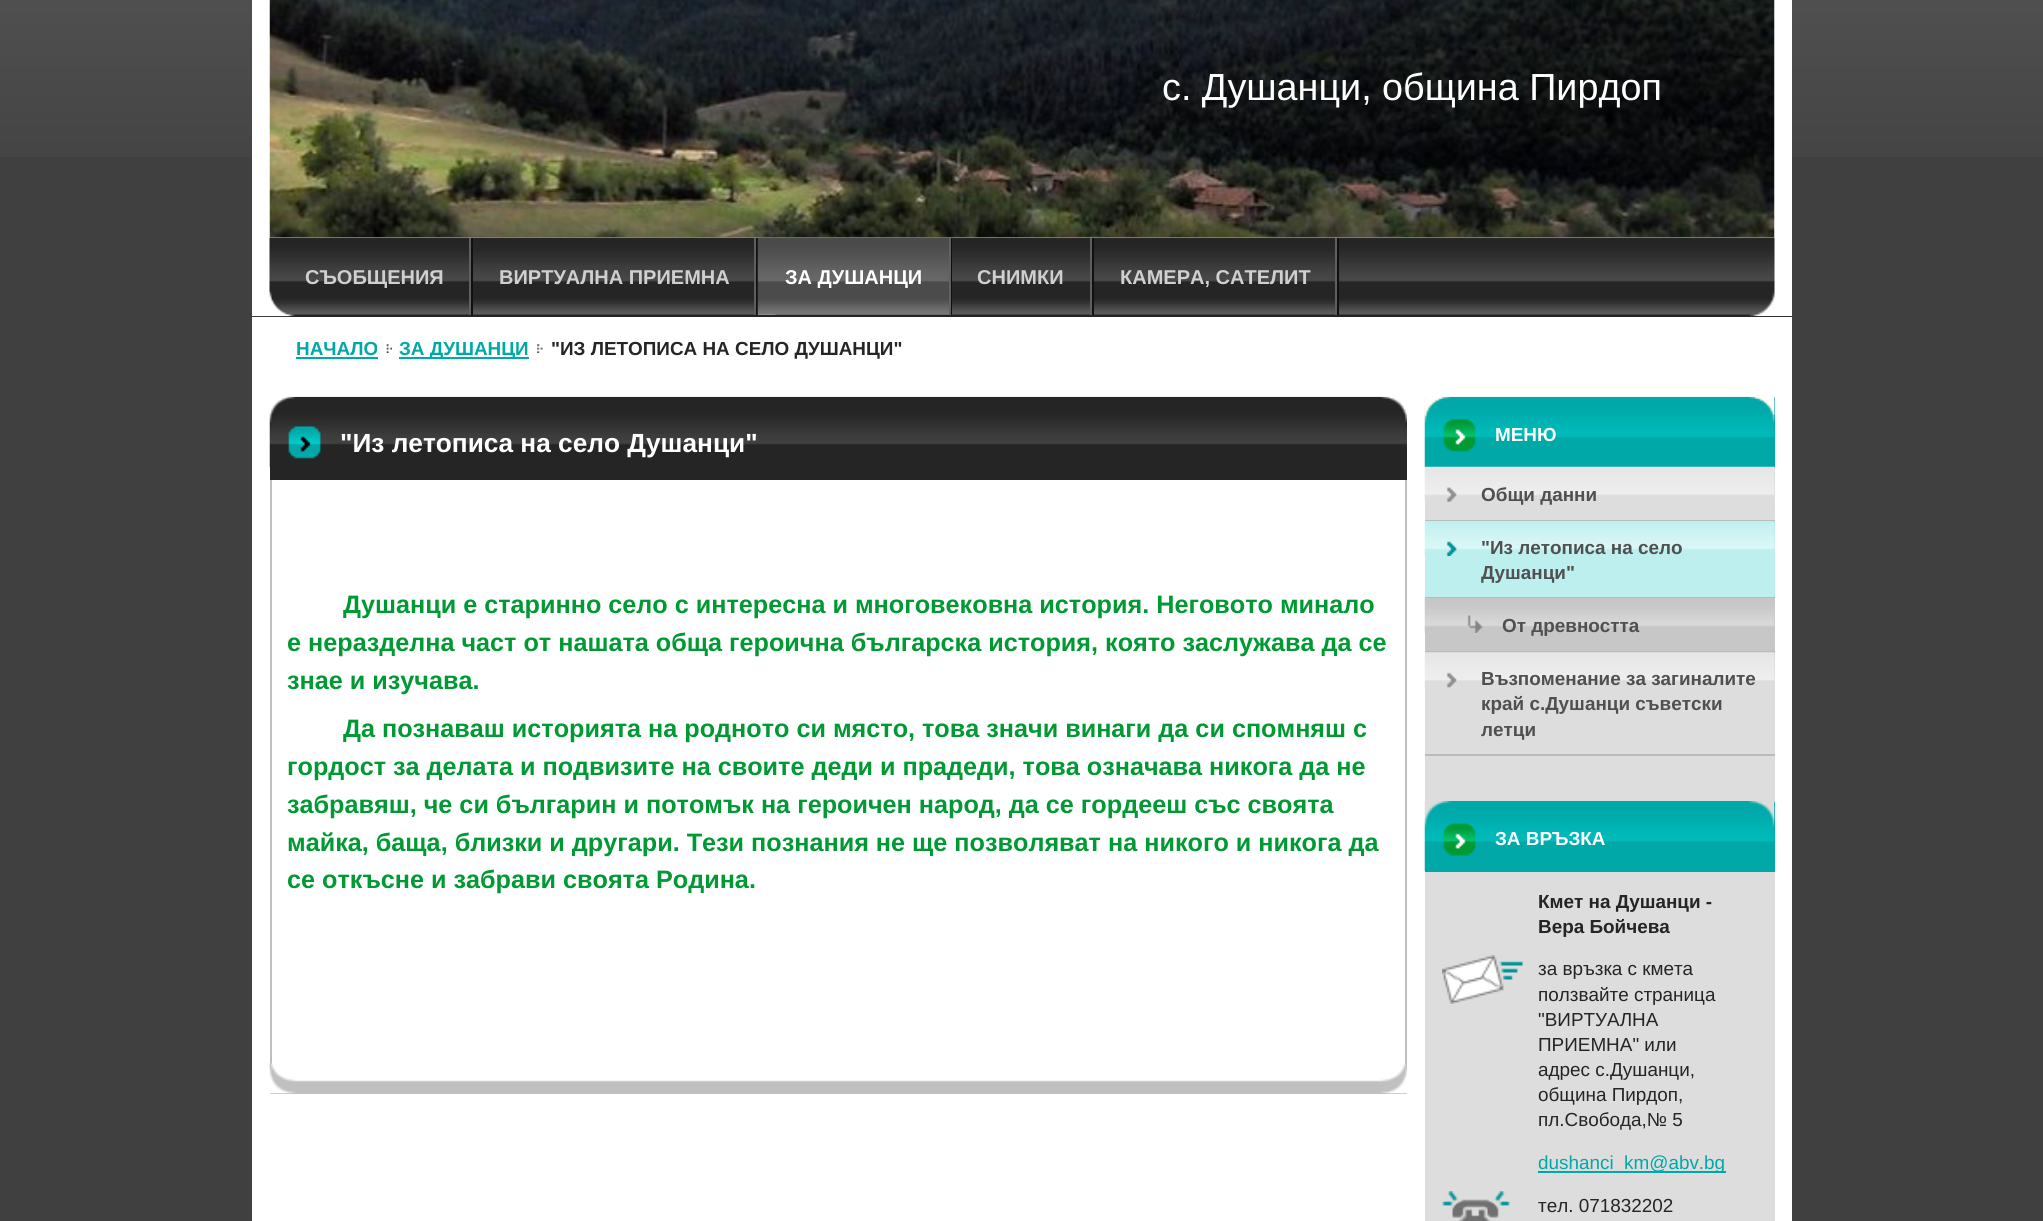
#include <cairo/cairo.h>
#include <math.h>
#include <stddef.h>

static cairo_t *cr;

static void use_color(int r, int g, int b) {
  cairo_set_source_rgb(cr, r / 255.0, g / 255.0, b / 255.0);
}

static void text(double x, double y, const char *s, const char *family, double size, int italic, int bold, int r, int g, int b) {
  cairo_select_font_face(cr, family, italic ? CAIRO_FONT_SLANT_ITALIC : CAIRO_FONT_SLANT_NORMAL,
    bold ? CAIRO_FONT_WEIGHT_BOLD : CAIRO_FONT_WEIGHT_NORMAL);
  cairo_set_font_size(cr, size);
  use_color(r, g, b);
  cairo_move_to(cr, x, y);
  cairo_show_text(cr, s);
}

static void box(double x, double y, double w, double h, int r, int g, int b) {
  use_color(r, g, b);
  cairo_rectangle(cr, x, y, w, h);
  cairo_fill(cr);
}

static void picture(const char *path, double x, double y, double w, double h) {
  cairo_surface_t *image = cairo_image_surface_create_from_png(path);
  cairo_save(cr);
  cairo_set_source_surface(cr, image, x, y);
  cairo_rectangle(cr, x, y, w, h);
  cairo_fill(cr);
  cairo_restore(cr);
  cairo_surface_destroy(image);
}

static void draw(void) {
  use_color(64, 64, 64);
  cairo_paint(cr);
  picture("img_01.png", 0, 0, 2043, 157);
  box(252, 0, 1540, 238, 255, 255, 255);
  picture("img_02.png", 269, 0, 1506, 238);
  box(252, 316, 1540, 1, 34, 34, 34);
  picture("img_03.png", 252, 237, 1540, 80);
  box(471, 238, 2, 77, 16, 16, 16);
  box(469, 238, 2, 77, 95, 95, 95);
  box(756, 238, 2, 77, 16, 16, 16);
  box(754, 238, 2, 77, 95, 95, 95);
  box(951, 238, 1, 77, 16, 16, 16);
  box(758, 314, 191, 1, 95, 95, 95);
  picture("img_04.png", 757, 237, 194, 78);
  box(949, 238, 2, 77, 95, 95, 95);
  box(1092, 238, 2, 77, 16, 16, 16);
  box(1090, 238, 2, 77, 95, 95, 95);
  box(1337, 238, 2, 77, 16, 16, 16);
  box(1335, 238, 2, 77, 95, 95, 95);
  picture("img_05.png", 252, 291, 41, 26);
  box(252, 317, 1540, 904, 255, 255, 255);
  box(296, 357, 82, 2, 0, 168, 168);
  picture("img_06.png", 386, 344, 6, 9);
  box(399, 357, 130, 2, 0, 168, 168);
  picture("img_07.png", 537, 344, 6, 9);
  picture("img_08.png", 269, 396, 1138, 27);
  box(1405, 480, 2, 584, 192, 192, 192);
  box(272, 1093, 1135, 1, 192, 192, 192);
  box(270, 480, 2, 614, 192, 192, 192);
  picture("img_09.png", 269, 1063, 1138, 31);
  box(270, 466, 1137, 14, 37, 37, 37);
  picture("img_10.png", 269, 423, 1138, 44);
  box(1425, 467, 350, 335, 221, 221, 221);
  box(1425, 397, 350, 70, 0, 168, 168);
  picture("img_12.png", 1424, 396, 351, 71);
  picture("img_11.png", 1424, 397, 351, 20);
  picture("img_13.png", 1424, 466, 351, 36);
  box(1425, 520, 350, 2, 187, 187, 187);
  box(1425, 522, 350, 75, 189, 239, 239);
  picture("img_14.png", 1424, 521, 351, 35);
  box(1425, 597, 350, 2, 187, 187, 187);
  box(1425, 599, 350, 52, 199, 199, 199);
  picture("img_15.png", 1424, 598, 351, 35);
  box(1425, 651, 350, 2, 187, 187, 187);
  picture("img_16.png", 1424, 652, 351, 36);
  box(1425, 754, 350, 2, 187, 187, 187);
  box(1425, 872, 350, 349, 221, 221, 221);
  box(1425, 802, 350, 70, 0, 168, 168);
  picture("img_17.png", 1424, 801, 351, 70);
  picture("img_18.png", 1442, 955, 81, 49);
  box(1538, 1171, 188, 2, 0, 168, 168);
  picture("img_19.png", 1442, 1191, 69, 30);
  text(1162, 100, "с. Душанци, община Пирдоп", "Liberation Sans", 37.75, 0, 0, 255, 255, 255);
  text(305, 284, "СЪОБЩЕНИЯ", "Liberation Sans", 20, 0, 1, 208, 208, 208);
  text(499, 284, "ВИРТУАЛНА ПРИЕМНА", "Liberation Sans", 20, 0, 1, 208, 208, 208);
  text(785, 284, "ЗА ДУШАНЦИ", "Liberation Sans", 20, 0, 1, 255, 255, 255);
  text(977, 284, "СНИМКИ", "Liberation Sans", 20, 0, 1, 208, 208, 208);
  text(1120, 284, "КАМЕРА, САТЕЛИТ", "Liberation Sans", 20, 0, 1, 208, 208, 208);
  text(296, 355, "НАЧАЛО", "Liberation Sans", 18.9, 0, 1, 0, 168, 168);
  text(399, 355, "ЗА ДУШАНЦИ", "Liberation Sans", 18.9, 0, 1, 0, 168, 168);
  text(551, 355, "\"ИЗ ЛЕТОПИСА НА СЕЛО ДУШАНЦИ\"", "Liberation Sans", 18.9, 0, 1, 37, 37, 37);
  text(340, 452, "\"Из летописа на село Душанци\"", "Liberation Sans", 26.25, 0, 1, 255, 255, 255);
  text(343, 613, "Душанци е старинно село с интересна и многовековна история. Неговото минало", "Liberation Sans", 25.2, 0, 1, 1, 153, 52);
  text(287, 651, "е неразделна част от нашата обща героична българска история, която заслужава да се", "Liberation Sans", 25.2, 0, 1, 1, 153, 52);
  text(287, 689, "знае и изучава.", "Liberation Sans", 25.2, 0, 1, 1, 153, 52);
  text(343, 737, "Да познаваш историята на родното си място, това значи винаги да си спомняш с", "Liberation Sans", 25.2, 0, 1, 1, 153, 52);
  text(287, 775, "гордост за делата и подвизите на своите деди и прадеди, това означава никога да не", "Liberation Sans", 25.2, 0, 1, 1, 153, 52);
  text(287, 813, "забравяш, че си българин и потомък на героичен народ, да се гордееш със своята", "Liberation Sans", 25.2, 0, 1, 1, 153, 52);
  text(287, 851, "майка, баща, близки и другари. Тези познания не ще позволяват на никого и никога да", "Liberation Sans", 25.2, 0, 1, 1, 153, 52);
  text(287, 888, "се откъсне и забрави своята Родина.", "Liberation Sans", 25.2, 0, 1, 1, 153, 52);
  text(1495, 441, "МЕНЮ", "Liberation Sans", 18.9, 0, 1, 255, 255, 255);
  text(1481, 501, "Общи данни", "Liberation Sans", 18.9, 0, 1, 80, 80, 80);
  text(1481, 554, "\"Из летописа на село", "Liberation Sans", 18.9, 0, 1, 80, 80, 80);
  text(1481, 579, "Душанци\"", "Liberation Sans", 18.9, 0, 1, 80, 80, 80);
  text(1502, 632, "От древността", "Liberation Sans", 18.9, 0, 1, 80, 80, 80);
  text(1481, 685, "Възпоменание за загиналите", "Liberation Sans", 18.9, 0, 1, 80, 80, 80);
  text(1481, 710, "край с.Душанци съветски", "Liberation Sans", 18.9, 0, 1, 80, 80, 80);
  text(1481, 736, "летци", "Liberation Sans", 18.9, 0, 1, 80, 80, 80);
  text(1495, 845, "ЗА ВРЪЗКА", "Liberation Sans", 18.9, 0, 1, 255, 255, 255);
  text(1538, 908, "Кмет на Душанци -", "Liberation Sans", 18.9, 0, 1, 37, 37, 37);
  text(1538, 933, "Вера Бойчева", "Liberation Sans", 18.9, 0, 1, 37, 37, 37);
  text(1538, 975, "за връзка с кмета", "Liberation Sans", 18.9, 0, 0, 37, 37, 37);
  text(1538, 1001, "ползвайте страница", "Liberation Sans", 18.9, 0, 0, 37, 37, 37);
  text(1538, 1026, "\"ВИРТУАЛНА", "Liberation Sans", 18.9, 0, 0, 37, 37, 37);
  text(1538, 1051, "ПРИЕМНА\" или", "Liberation Sans", 18.9, 0, 0, 37, 37, 37);
  text(1538, 1076, "адрес с.Душанци,", "Liberation Sans", 18.9, 0, 0, 37, 37, 37);
  text(1538, 1101, "община Пирдоп,", "Liberation Sans", 18.9, 0, 0, 37, 37, 37);
  text(1538, 1126, "пл.Свобода,№ 5", "Liberation Sans", 18.9, 0, 0, 37, 37, 37);
  text(1538, 1169, "dushanci", "Liberation Sans", 18.9, 0, 0, 0, 168, 168);
  text(1624, 1169, "km@abv.bg", "Liberation Sans", 18.9, 0, 0, 0, 168, 168);
  text(1538, 1212, "тел. 071832202", "Liberation Sans", 18.9, 0, 0, 37, 37, 37);
}

int main(void) {
  cairo_surface_t *surface = cairo_image_surface_create(CAIRO_FORMAT_RGB24, 2043, 1221);
  cr = cairo_create(surface);
  cairo_font_options_t *options = cairo_font_options_create();
  cairo_font_options_set_hint_metrics(options, CAIRO_HINT_METRICS_OFF);
  cairo_font_options_set_hint_style(options, CAIRO_HINT_STYLE_NONE);
  cairo_set_font_options(cr, options);
  cairo_set_miter_limit(cr, 4);
  draw();
  cairo_surface_write_to_png(surface, "out.png");
  cairo_font_options_destroy(options);
  cairo_destroy(cr);
  cairo_surface_destroy(surface);
  return 0;
}
